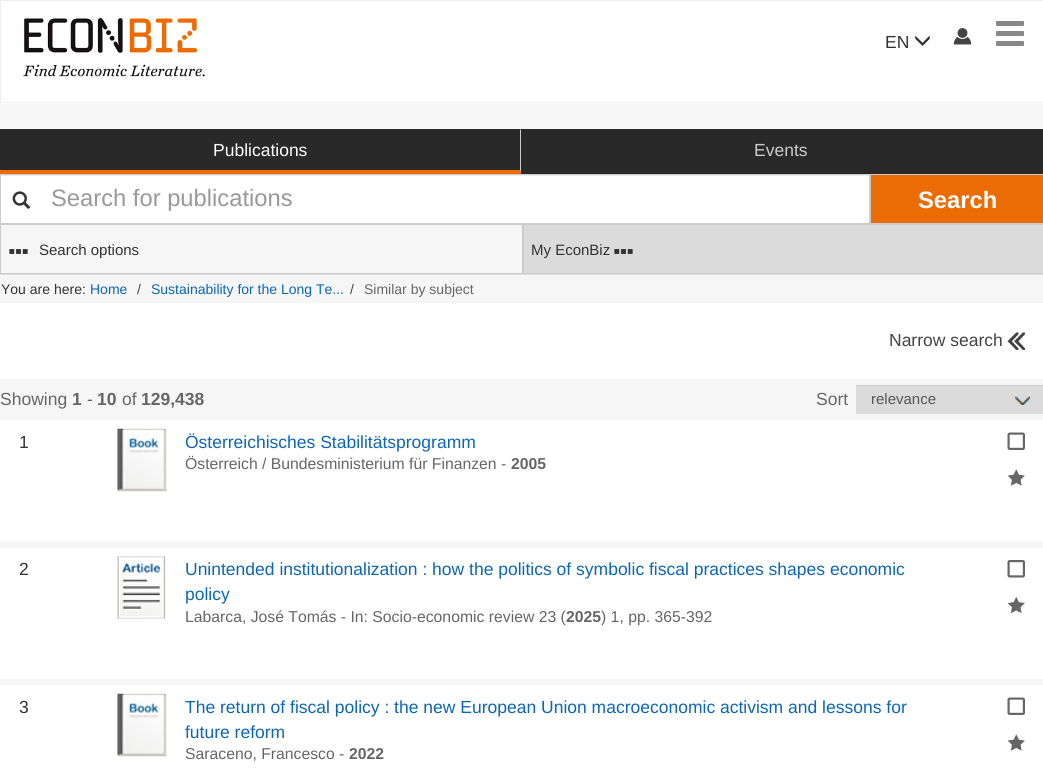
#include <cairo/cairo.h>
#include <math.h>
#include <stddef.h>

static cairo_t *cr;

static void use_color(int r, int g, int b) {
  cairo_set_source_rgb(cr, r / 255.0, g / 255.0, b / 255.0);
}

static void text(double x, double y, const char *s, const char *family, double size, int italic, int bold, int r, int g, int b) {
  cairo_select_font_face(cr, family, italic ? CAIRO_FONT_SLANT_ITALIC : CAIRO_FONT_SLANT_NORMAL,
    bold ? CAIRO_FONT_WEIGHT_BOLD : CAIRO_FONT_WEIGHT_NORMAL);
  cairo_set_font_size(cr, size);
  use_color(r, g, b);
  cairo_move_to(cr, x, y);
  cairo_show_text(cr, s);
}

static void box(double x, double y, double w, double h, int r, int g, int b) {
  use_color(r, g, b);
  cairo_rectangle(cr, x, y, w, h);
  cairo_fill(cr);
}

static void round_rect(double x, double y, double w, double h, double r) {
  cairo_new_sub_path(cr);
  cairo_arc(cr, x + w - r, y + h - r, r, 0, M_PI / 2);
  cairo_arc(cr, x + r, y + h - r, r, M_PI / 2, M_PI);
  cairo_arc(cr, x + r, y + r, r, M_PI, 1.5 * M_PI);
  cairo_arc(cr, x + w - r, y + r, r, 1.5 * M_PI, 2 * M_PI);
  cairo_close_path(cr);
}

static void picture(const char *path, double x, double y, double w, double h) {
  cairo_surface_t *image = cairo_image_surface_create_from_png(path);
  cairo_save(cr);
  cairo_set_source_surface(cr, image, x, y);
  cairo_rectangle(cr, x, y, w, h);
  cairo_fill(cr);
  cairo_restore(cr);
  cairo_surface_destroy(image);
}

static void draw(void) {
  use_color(255, 255, 255);
  cairo_paint(cr);
  cairo_rectangle(cr, 0.5, 0.5, 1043, 102);
  use_color(238, 238, 238);
  cairo_set_line_width(cr, 1);
  cairo_stroke(cr);
  picture("img_01.png", 23, 18, 182, 59);
  picture("img_02.png", 915, 35, 15, 11);
  picture("img_03.png", 953, 28, 19, 17);
  use_color(136, 136, 136);
  round_rect(996, 21, 28, 5, 1);
  cairo_fill(cr);
  round_rect(996, 31, 28, 5, 1);
  cairo_fill(cr);
  round_rect(996, 41, 28, 5, 1);
  cairo_fill(cr);
  box(0, 104, 1043, 199, 246, 246, 246);
  box(0, 130, 520, 40, 41, 41, 41);
  cairo_new_path(cr);
  cairo_move_to(cr, 0, 129);
  cairo_line_to(cr, 522, 129);
  cairo_line_to(cr, 520, 130);
  cairo_line_to(cr, 0, 130);
  cairo_close_path(cr);
  cairo_fill(cr);
  use_color(204, 204, 204);
  cairo_new_path(cr);
  cairo_move_to(cr, 522, 129);
  cairo_line_to(cr, 522, 174);
  cairo_line_to(cr, 520, 170);
  cairo_line_to(cr, 520, 130);
  cairo_close_path(cr);
  cairo_fill(cr);
  use_color(235, 107, 5);
  cairo_new_path(cr);
  cairo_move_to(cr, 522, 174);
  cairo_line_to(cr, 0, 174);
  cairo_line_to(cr, 0, 170);
  cairo_line_to(cr, 520, 170);
  cairo_close_path(cr);
  cairo_fill(cr);
  box(521, 130, 519, 40, 41, 41, 41);
  box(521, 129, 522, 1, 41, 41, 41);
  box(1040, 129, 3, 45, 41, 41, 41);
  box(521, 170, 522, 4, 41, 41, 41);
  box(1, 176, 868, 47, 255, 255, 255);
  box(1, 175, 868, 1, 236, 236, 236);
  cairo_rectangle(cr, 0.5, 174.5, 869, 49);
  use_color(204, 204, 204);
  cairo_stroke(cr);
  picture("img_04.png", 12, 191, 19, 18);
  box(871, 175, 172, 48, 235, 107, 5);
  box(870, 174, 173, 1, 204, 204, 204);
  box(870, 223, 173, 1, 204, 204, 204);
  box(870, 174, 1, 50, 204, 204, 204);
  box(0, 274, 1043, 1, 221, 221, 221);
  cairo_rectangle(cr, 0.5, 224.5, 522, 49);
  use_color(204, 204, 204);
  cairo_stroke(cr);
  picture("img_05.png", 9, 249, 19, 5);
  use_color(219, 219, 219);
  cairo_rectangle(cr, 523.5, 224.5, 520, 49);
  cairo_fill_preserve(cr);
  use_color(204, 204, 204);
  cairo_stroke(cr);
  picture("img_06.png", 614, 249, 19, 5);
  picture("img_07.png", 1007, 332, 19, 18);
  box(0, 379, 1043, 306, 246, 246, 246);
  box(856, 386, 187, 28, 219, 219, 219);
  picture("img_08.png", 1015, 395, 15, 10);
  box(856, 385, 187, 1, 203, 203, 203);
  box(0, 420, 1043, 121, 255, 255, 255);
  picture("img_09.png", 117, 428, 50, 64);
  picture("img_10.png", 1007, 432, 18, 18);
  picture("img_11.png", 1007, 469, 18, 17);
  box(0, 548, 1043, 131, 255, 255, 255);
  picture("img_12.png", 117, 556, 49, 63);
  picture("img_13.png", 1007, 560, 18, 18);
  picture("img_14.png", 1007, 596, 18, 18);
  picture("img_09.png", 117, 693, 50, 64);
  picture("img_10.png", 1007, 697, 18, 18);
  picture("img_11.png", 1007, 734, 18, 17);
  text(885, 48, "EN", "Liberation Sans", 17.5, 0, 0, 51, 51, 51);
  text(213, 156, "Publications", "Liberation Sans", 17.5, 0, 0, 255, 255, 255);
  text(754, 156, "Events", "Liberation Sans", 17.5, 0, 0, 204, 204, 204);
  text(51, 206, "Search for publications", "Liberation Sans", 23.75, 0, 0, 153, 153, 153);
  text(918, 208, "Search", "Liberation Sans", 23.75, 0, 1, 255, 255, 255);
  text(39, 255, "Search options", "Liberation Sans", 15, 0, 0, 51, 51, 51);
  text(531, 255, "My EconBiz", "Liberation Sans", 15, 0, 0, 51, 51, 51);
  text(1, 294, "You are here:", "Liberation Sans", 14, 0, 0, 51, 51, 51);
  text(90, 294, "Home", "Liberation Sans", 14, 0, 0, 12, 102, 181);
  text(137, 294, "/", "Liberation Sans", 14, 0, 0, 68, 68, 68);
  text(151, 294, "Sustainability for the Long Te...", "Liberation Sans", 14, 0, 0, 12, 102, 181);
  text(350, 294, "/", "Liberation Sans", 14, 0, 0, 68, 68, 68);
  text(364, 294, "Similar by subject", "Liberation Sans", 14, 0, 0, 102, 102, 102);
  text(889, 346, "Narrow search", "Liberation Sans", 17.5, 0, 0, 68, 68, 68);
  text(0, 405, "Showing", "Liberation Sans", 17.5, 0, 0, 102, 102, 102);
  text(72, 405, "1", "Liberation Sans", 17.5, 0, 1, 102, 102, 102);
  text(87, 405, "-", "Liberation Sans", 17.5, 0, 0, 102, 102, 102);
  text(97, 405, "10", "Liberation Sans", 17.5, 0, 1, 102, 102, 102);
  text(122, 405, "of", "Liberation Sans", 17.5, 0, 0, 102, 102, 102);
  text(141, 405, "129,438", "Liberation Sans", 17.5, 0, 1, 102, 102, 102);
  text(816, 405, "Sort", "Liberation Sans", 17.5, 0, 0, 102, 102, 102);
  text(871, 404, "relevance", "Liberation Sans", 15, 0, 0, 85, 85, 85);
  text(19, 448, "1", "Liberation Sans", 17.5, 0, 0, 51, 51, 51);
  text(185, 448, "Österreichisches Stabilitätsprogramm", "Liberation Sans", 17.5, 0, 0, 12, 102, 181);
  text(185, 469, "Österreich / Bundesministerium für Finanzen -", "Liberation Sans", 15.75, 0, 0, 102, 102, 102);
  text(511, 469, "2005", "Liberation Sans", 15.75, 0, 1, 102, 102, 102);
  text(19, 575, "2", "Liberation Sans", 17.5, 0, 0, 51, 51, 51);
  text(185, 575, "Unintended institutionalization : how the politics of symbolic fiscal practices shapes economic", "Liberation Sans", 17.5, 0, 0, 12, 102, 181);
  text(185, 600, "policy", "Liberation Sans", 17.5, 0, 0, 12, 102, 181);
  text(185, 622, "Labarca, José Tomás - In: Socio-economic review 23 (", "Liberation Sans", 15.75, 0, 0, 102, 102, 102);
  text(566, 622, "2025", "Liberation Sans", 15.75, 0, 1, 102, 102, 102);
  text(601, 622, ") 1, pp. 365-392", "Liberation Sans", 15.75, 0, 0, 102, 102, 102);
  text(19, 713, "3", "Liberation Sans", 17.5, 0, 0, 51, 51, 51);
  text(185, 713, "The return of fiscal policy : the new European Union macroeconomic activism and lessons for", "Liberation Sans", 17.5, 0, 0, 12, 102, 181);
  text(185, 738, "future reform", "Liberation Sans", 17.5, 0, 0, 12, 102, 181);
  text(185, 759, "Saraceno, Francesco -", "Liberation Sans", 15.75, 0, 0, 102, 102, 102);
  text(349, 759, "2022", "Liberation Sans", 15.75, 0, 1, 102, 102, 102);
}

int main(void) {
  cairo_surface_t *surface = cairo_image_surface_create(CAIRO_FORMAT_RGB24, 1043, 774);
  cr = cairo_create(surface);
  cairo_font_options_t *options = cairo_font_options_create();
  cairo_font_options_set_hint_metrics(options, CAIRO_HINT_METRICS_OFF);
  cairo_font_options_set_hint_style(options, CAIRO_HINT_STYLE_NONE);
  cairo_set_font_options(cr, options);
  cairo_set_miter_limit(cr, 4);
  draw();
  cairo_surface_write_to_png(surface, "out.png");
  cairo_font_options_destroy(options);
  cairo_destroy(cr);
  cairo_surface_destroy(surface);
  return 0;
}
